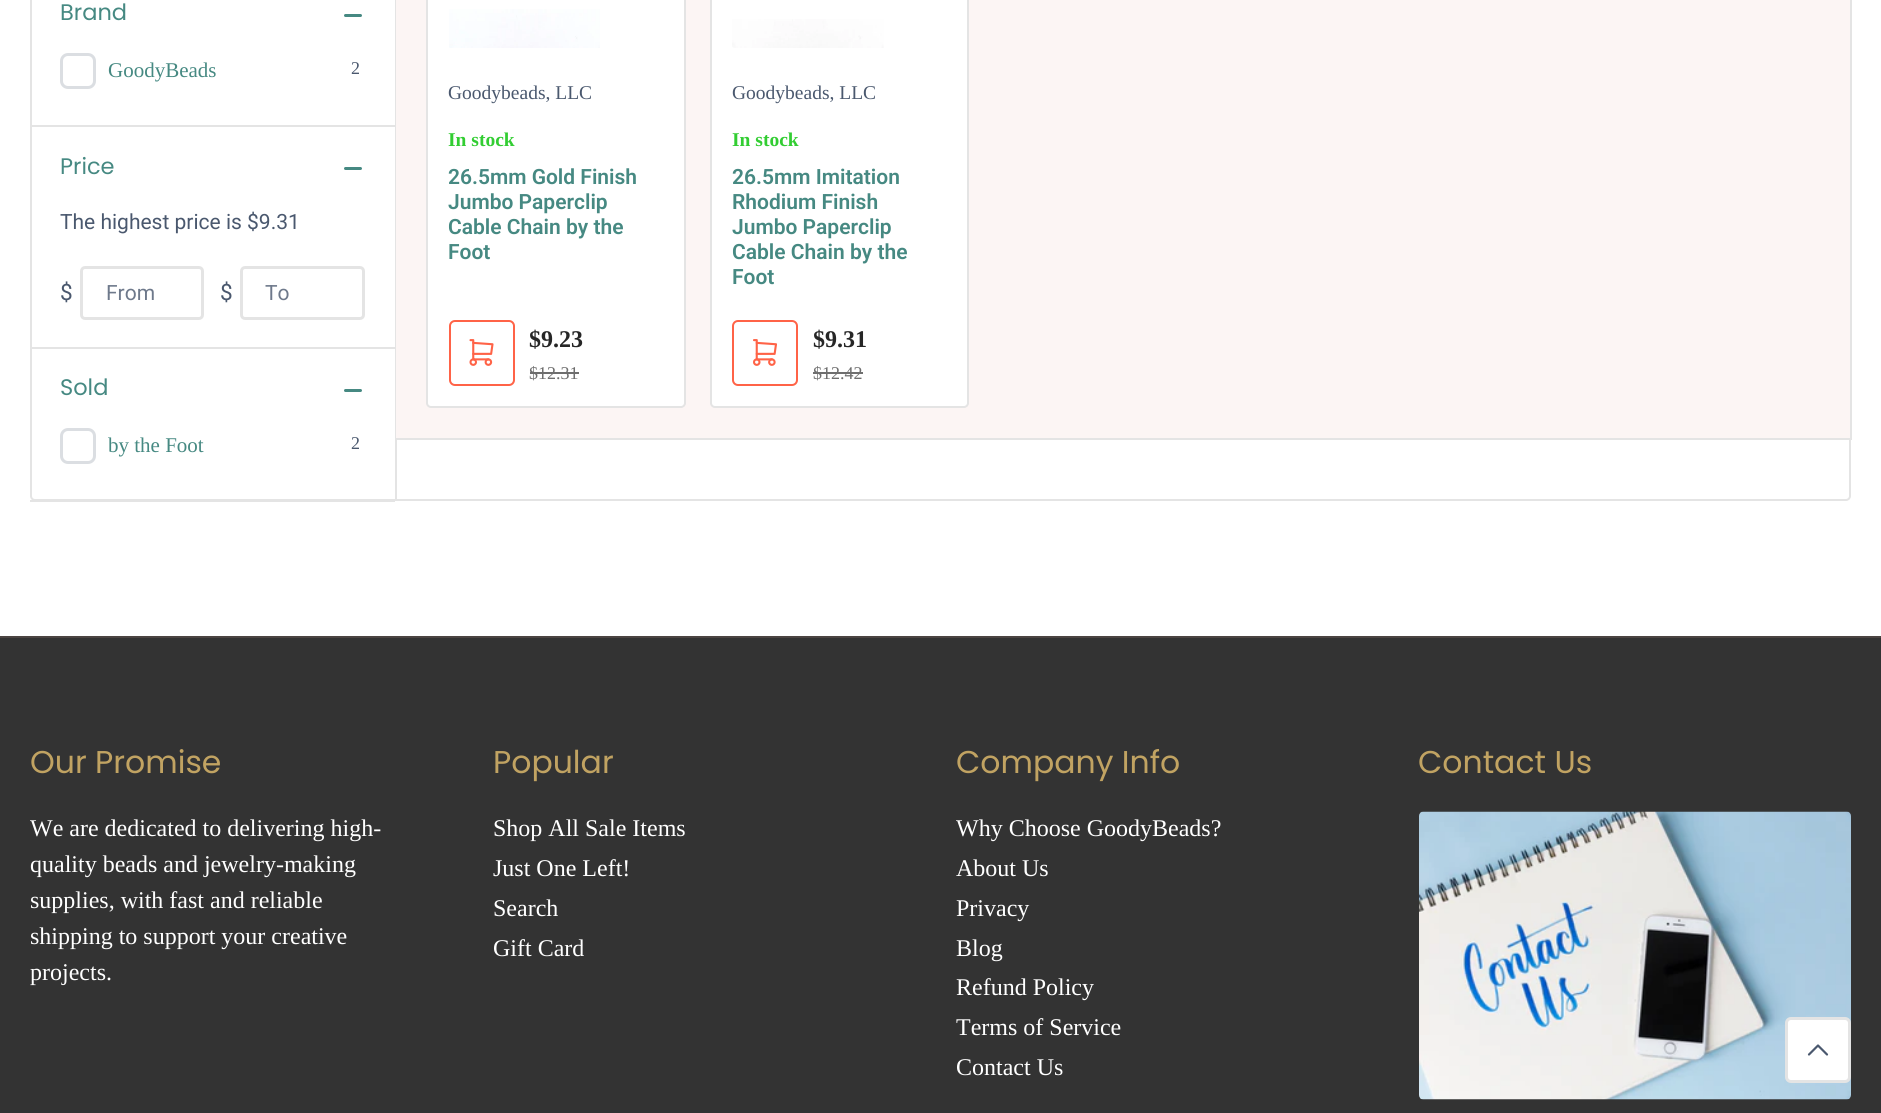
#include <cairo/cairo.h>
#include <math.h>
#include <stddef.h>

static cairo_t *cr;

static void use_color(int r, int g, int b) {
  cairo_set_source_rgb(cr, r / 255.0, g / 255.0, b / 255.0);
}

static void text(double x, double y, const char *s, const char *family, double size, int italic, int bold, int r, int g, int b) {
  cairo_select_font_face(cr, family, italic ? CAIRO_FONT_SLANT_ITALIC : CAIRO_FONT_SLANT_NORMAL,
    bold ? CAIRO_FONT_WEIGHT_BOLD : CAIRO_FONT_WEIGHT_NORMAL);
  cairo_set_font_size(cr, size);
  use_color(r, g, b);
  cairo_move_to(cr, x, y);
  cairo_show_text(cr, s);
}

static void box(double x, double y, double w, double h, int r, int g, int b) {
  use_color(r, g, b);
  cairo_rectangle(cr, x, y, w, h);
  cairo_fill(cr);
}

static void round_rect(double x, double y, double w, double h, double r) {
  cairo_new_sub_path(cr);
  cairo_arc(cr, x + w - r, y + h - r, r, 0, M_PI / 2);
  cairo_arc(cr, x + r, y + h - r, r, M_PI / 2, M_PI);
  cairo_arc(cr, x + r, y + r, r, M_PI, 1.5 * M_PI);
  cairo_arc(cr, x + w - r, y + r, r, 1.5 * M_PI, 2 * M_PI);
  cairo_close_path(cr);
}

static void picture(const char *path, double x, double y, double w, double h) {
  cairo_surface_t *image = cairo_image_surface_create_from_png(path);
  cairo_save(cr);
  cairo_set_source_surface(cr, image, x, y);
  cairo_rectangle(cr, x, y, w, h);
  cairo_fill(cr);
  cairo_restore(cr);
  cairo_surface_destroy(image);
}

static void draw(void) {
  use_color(255, 255, 255);
  cairo_paint(cr);
  round_rect(31, -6, 1819, 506, 4);
  use_color(228, 228, 228);
  cairo_stroke(cr);
  box(30, 125, 365, 2, 228, 228, 228);
  use_color(70, 137, 130);
  round_rect(344, 14, 12, 3, 1.5);
  cairo_fill(cr);
  round_rect(351, 14, 11, 3, 1.5);
  cairo_fill(cr);
  round_rect(61.5, 54.5, 33, 33, 6.5);
  use_color(219, 222, 226);
  cairo_set_line_width(cr, 3);
  cairo_stroke(cr);
  box(30, 347, 365, 2, 228, 228, 228);
  use_color(70, 137, 130);
  round_rect(344, 167, 12, 3, 1.5);
  cairo_fill(cr);
  round_rect(351, 167, 11, 3, 1.5);
  cairo_fill(cr);
  round_rect(81.5, 267.5, 121, 51, 3.5);
  use_color(228, 228, 228);
  cairo_stroke(cr);
  round_rect(241.5, 267.5, 122, 51, 3.5);
  cairo_stroke(cr);
  box(30, 500, 365, 2, 228, 228, 228);
  use_color(70, 137, 130);
  round_rect(344, 389, 12, 3, 1.5);
  cairo_fill(cr);
  round_rect(351, 389, 11, 3, 1.5);
  cairo_fill(cr);
  round_rect(61.5, 429.5, 33, 33, 6.5);
  use_color(219, 222, 226);
  cairo_stroke(cr);
  box(395, 0, 2, 501, 228, 228, 228);
  box(396, 0, 1454, 438, 252, 245, 244);
  box(1851, 0, 1, 440, 228, 228, 228);
  box(396, 438, 1455, 2, 228, 228, 228);
  use_color(255, 255, 255);
  round_rect(427, -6, 258, 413, 4);
  cairo_fill_preserve(cr);
  use_color(228, 228, 228);
  cairo_set_line_width(cr, 2);
  cairo_stroke(cr);
  picture("img_01.png", 449, 9, 151, 39);
  round_rect(450, 321, 64, 64, 5);
  use_color(255, 99, 71);
  cairo_stroke(cr);
  picture("img_02.png", 469, 339, 25, 27);
  box(530, 372, 49, 2, 110, 110, 110);
  use_color(255, 255, 255);
  round_rect(711, -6, 257, 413, 4);
  cairo_fill_preserve(cr);
  use_color(228, 228, 228);
  cairo_stroke(cr);
  picture("img_03.png", 732, 19, 152, 29);
  round_rect(733, 321, 64, 64, 5);
  use_color(255, 99, 71);
  cairo_stroke(cr);
  picture("img_04.png", 753, 339, 24, 27);
  box(813, 372, 50, 2, 110, 110, 110);
  box(0, 638, 1881, 475, 51, 51, 51);
  box(0, 636, 1881, 2, 75, 68, 66);
  picture("img_05.png", 1419, 811, 432, 289);
  use_color(255, 255, 255);
  round_rect(1786.5, 1018.5, 63, 63, 4.5);
  cairo_fill_preserve(cr);
  use_color(228, 228, 228);
  cairo_set_line_width(cr, 3);
  cairo_stroke(cr);
  cairo_new_path(cr);
  cairo_move_to(cr, 1809, 1054.5);
  cairo_line_to(cr, 1818, 1045.5);
  cairo_line_to(cr, 1827, 1054.5);
  use_color(74, 88, 110);
  cairo_set_line_width(cr, 2.2);
  cairo_set_line_cap(cr, CAIRO_LINE_CAP_ROUND);
  cairo_set_line_join(cr, CAIRO_LINE_JOIN_ROUND);
  cairo_stroke(cr);
  text(60, 20, "Brand", "Poppins", 22.5, 0, 0, 70, 137, 130);
  text(108, 77, "GoodyBeads", "Liberation Serif", 21, 0, 0, 70, 137, 130);
  text(351, 74, "2", "Liberation Serif", 18, 0, 0, 74, 88, 110);
  text(60, 174, "Price", "Poppins", 22.5, 0, 0, 70, 137, 130);
  text(60, 229, "The highest price is $9.31", "Roboto", 21, 0, 0, 74, 88, 110);
  text(60, 300, "$", "Roboto", 22.5, 0, 0, 74, 88, 110);
  text(106, 300, "From", "Roboto", 21, 0, 0, 110, 121, 139);
  text(220, 300, "$", "Roboto", 22.5, 0, 0, 74, 88, 110);
  text(265, 300, "To", "Roboto", 21, 0, 0, 110, 121, 139);
  text(60, 395, "Sold", "Poppins", 22.5, 0, 0, 70, 137, 130);
  text(108, 452, "by the Foot", "Liberation Serif", 21, 0, 0, 70, 137, 130);
  text(351, 449, "2", "Liberation Serif", 18, 0, 0, 74, 88, 110);
  text(448, 99, "Goodybeads, LLC", "Liberation Serif", 19.5, 0, 0, 74, 88, 110);
  text(448, 146, "In stock", "Liberation Serif", 19.5, 0, 1, 50, 205, 50);
  text(448, 184, "26.5mm Gold Finish", "Roboto SemiBold", 21, 0, 0, 70, 137, 130);
  text(448, 209, "Jumbo Paperclip", "Roboto SemiBold", 21, 0, 0, 70, 137, 130);
  text(448, 234, "Cable Chain by the", "Roboto SemiBold", 21, 0, 0, 70, 137, 130);
  text(448, 259, "Foot", "Roboto SemiBold", 21, 0, 0, 70, 137, 130);
  text(529, 347, "$9.23", "Liberation Serif", 24, 0, 1, 38, 38, 38);
  text(529, 379, "$12.31", "Liberation Serif", 18, 0, 0, 110, 110, 110);
  text(732, 99, "Goodybeads, LLC", "Liberation Serif", 19.5, 0, 0, 74, 88, 110);
  text(732, 146, "In stock", "Liberation Serif", 19.5, 0, 1, 50, 205, 50);
  text(732, 184, "26.5mm Imitation", "Roboto SemiBold", 21, 0, 0, 70, 137, 130);
  text(732, 209, "Rhodium Finish", "Roboto SemiBold", 21, 0, 0, 70, 137, 130);
  text(732, 234, "Jumbo Paperclip", "Roboto SemiBold", 21, 0, 0, 70, 137, 130);
  text(732, 259, "Cable Chain by the", "Roboto SemiBold", 21, 0, 0, 70, 137, 130);
  text(732, 284, "Foot", "Roboto SemiBold", 21, 0, 0, 70, 137, 130);
  text(813, 347, "$9.31", "Liberation Serif", 24, 0, 1, 38, 38, 38);
  text(813, 379, "$12.42", "Liberation Serif", 18, 0, 0, 110, 110, 110);
  text(30, 773, "Our Promise", "Poppins", 31.5, 0, 0, 193, 163, 98);
  text(30, 836, "We are dedicated to delivering high-", "Liberation Serif", 24, 0, 0, 255, 255, 255);
  text(30, 872, "quality beads and jewelry-making", "Liberation Serif", 24, 0, 0, 255, 255, 255);
  text(30, 908, "supplies, with fast and reliable", "Liberation Serif", 24, 0, 0, 255, 255, 255);
  text(30, 944, "shipping to support your creative", "Liberation Serif", 24, 0, 0, 255, 255, 255);
  text(30, 980, "projects.", "Liberation Serif", 24, 0, 0, 255, 255, 255);
  text(493, 773, "Popular", "Poppins", 31.5, 0, 0, 193, 163, 98);
  text(493, 836, "Shop All Sale Items", "Liberation Serif", 24, 0, 0, 255, 255, 255);
  text(493, 876, "Just One Left!", "Liberation Serif", 24, 0, 0, 255, 255, 255);
  text(493, 916, "Search", "Liberation Serif", 24, 0, 0, 255, 255, 255);
  text(493, 956, "Gift Card", "Liberation Serif", 24, 0, 0, 255, 255, 255);
  text(956, 773, "Company Info", "Poppins", 31.5, 0, 0, 193, 163, 98);
  text(956, 836, "Why Choose GoodyBeads?", "Liberation Serif", 24, 0, 0, 255, 255, 255);
  text(956, 876, "About Us", "Liberation Serif", 24, 0, 0, 255, 255, 255);
  text(956, 916, "Privacy", "Liberation Serif", 24, 0, 0, 255, 255, 255);
  text(956, 956, "Blog", "Liberation Serif", 24, 0, 0, 255, 255, 255);
  text(956, 995, "Refund Policy", "Liberation Serif", 24, 0, 0, 255, 255, 255);
  text(956, 1035, "Terms of Service", "Liberation Serif", 24, 0, 0, 255, 255, 255);
  text(956, 1075, "Contact Us", "Liberation Serif", 24, 0, 0, 255, 255, 255);
  text(1418, 773, "Contact Us", "Poppins", 31.5, 0, 0, 193, 163, 98);
}

int main(void) {
  cairo_surface_t *surface = cairo_image_surface_create(CAIRO_FORMAT_RGB24, 1881, 1113);
  cr = cairo_create(surface);
  cairo_font_options_t *options = cairo_font_options_create();
  cairo_font_options_set_hint_metrics(options, CAIRO_HINT_METRICS_OFF);
  cairo_font_options_set_hint_style(options, CAIRO_HINT_STYLE_NONE);
  cairo_set_font_options(cr, options);
  cairo_set_miter_limit(cr, 4);
  draw();
  cairo_surface_write_to_png(surface, "out.png");
  cairo_font_options_destroy(options);
  cairo_destroy(cr);
  cairo_surface_destroy(surface);
  return 0;
}
